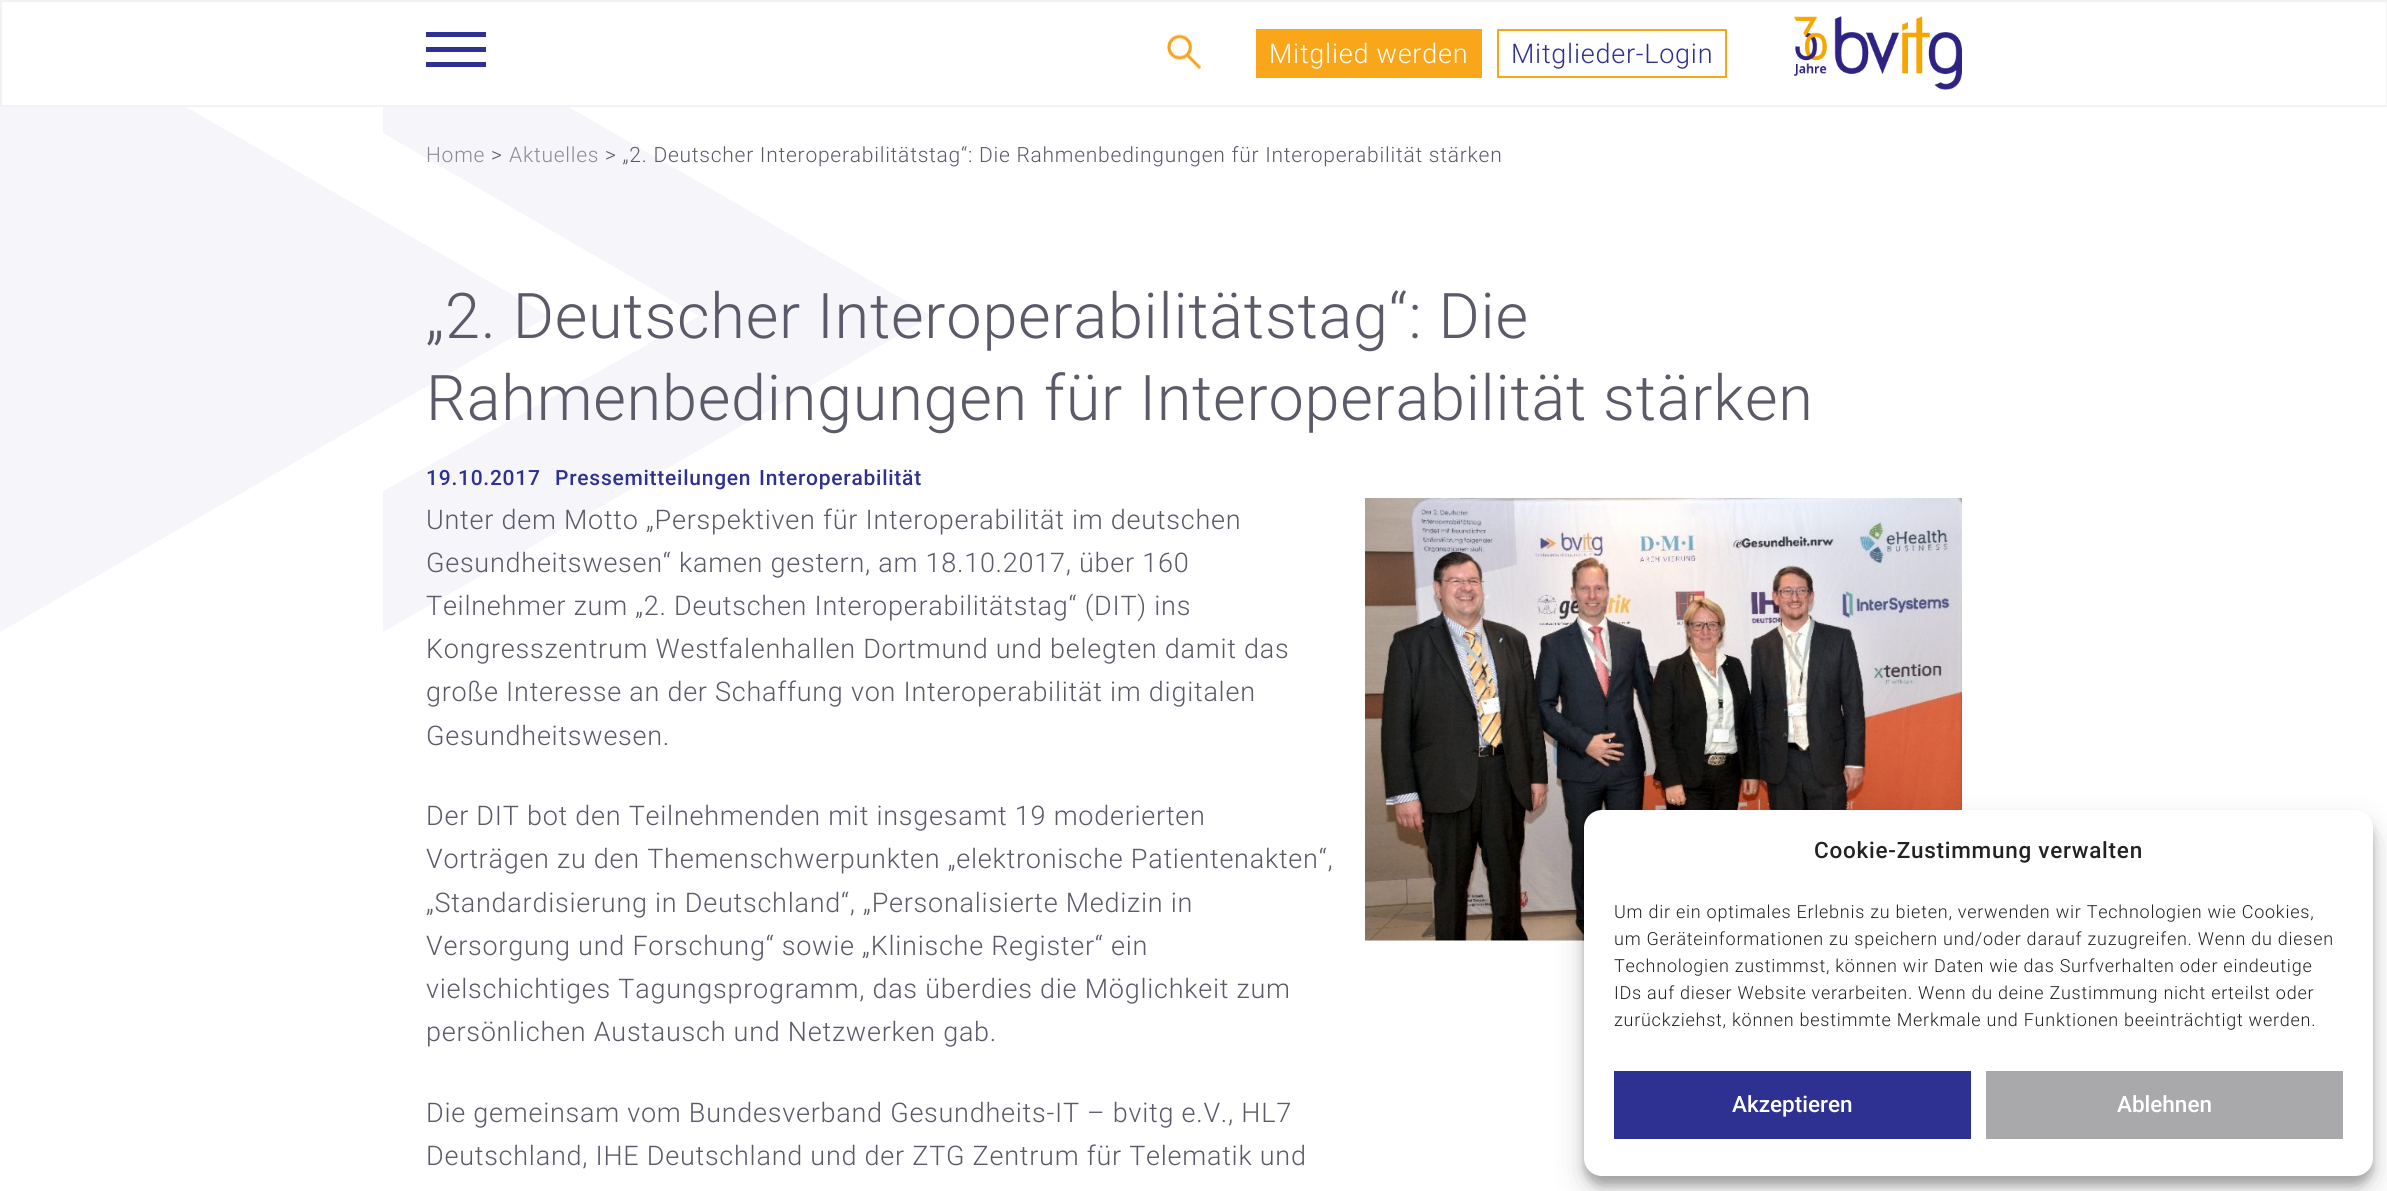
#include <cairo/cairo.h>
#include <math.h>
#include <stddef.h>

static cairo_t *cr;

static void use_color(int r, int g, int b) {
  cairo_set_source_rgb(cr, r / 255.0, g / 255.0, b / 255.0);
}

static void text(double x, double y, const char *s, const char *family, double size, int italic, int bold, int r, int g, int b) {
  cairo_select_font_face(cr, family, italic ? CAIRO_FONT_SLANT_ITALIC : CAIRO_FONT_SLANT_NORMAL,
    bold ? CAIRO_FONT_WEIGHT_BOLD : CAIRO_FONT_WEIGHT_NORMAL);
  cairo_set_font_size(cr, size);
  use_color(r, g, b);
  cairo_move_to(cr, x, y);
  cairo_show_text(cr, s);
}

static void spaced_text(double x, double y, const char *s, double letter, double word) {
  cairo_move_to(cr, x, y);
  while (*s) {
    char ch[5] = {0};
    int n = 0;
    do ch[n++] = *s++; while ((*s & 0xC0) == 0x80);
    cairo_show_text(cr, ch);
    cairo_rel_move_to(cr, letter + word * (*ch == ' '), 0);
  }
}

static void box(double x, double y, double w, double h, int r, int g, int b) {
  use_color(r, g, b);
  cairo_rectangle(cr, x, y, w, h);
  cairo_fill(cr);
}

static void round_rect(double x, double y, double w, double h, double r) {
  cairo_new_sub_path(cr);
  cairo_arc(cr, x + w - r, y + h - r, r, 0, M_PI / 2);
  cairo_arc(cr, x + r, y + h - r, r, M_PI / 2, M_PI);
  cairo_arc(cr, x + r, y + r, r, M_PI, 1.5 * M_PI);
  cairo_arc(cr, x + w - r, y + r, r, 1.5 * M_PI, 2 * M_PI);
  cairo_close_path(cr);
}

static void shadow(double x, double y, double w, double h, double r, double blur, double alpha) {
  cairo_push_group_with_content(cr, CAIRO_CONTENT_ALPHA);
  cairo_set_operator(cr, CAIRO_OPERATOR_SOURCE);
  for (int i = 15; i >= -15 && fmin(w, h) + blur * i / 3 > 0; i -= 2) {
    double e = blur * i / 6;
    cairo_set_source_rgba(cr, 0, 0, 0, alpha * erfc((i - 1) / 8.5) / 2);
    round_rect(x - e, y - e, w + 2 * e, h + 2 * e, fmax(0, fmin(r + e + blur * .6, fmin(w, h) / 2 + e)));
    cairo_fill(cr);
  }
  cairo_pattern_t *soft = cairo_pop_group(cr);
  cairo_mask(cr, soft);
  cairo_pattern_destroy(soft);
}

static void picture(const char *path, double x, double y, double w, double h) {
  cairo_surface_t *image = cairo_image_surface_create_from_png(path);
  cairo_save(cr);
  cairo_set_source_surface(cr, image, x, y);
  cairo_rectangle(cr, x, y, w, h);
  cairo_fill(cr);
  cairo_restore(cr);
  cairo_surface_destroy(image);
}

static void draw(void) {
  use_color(255, 255, 255);
  cairo_paint(cr);
  use_color(245, 245, 250);
  cairo_new_path(cr);
  cairo_move_to(cr, 0, 316);
  cairo_line_to(cr, 0, 0);
  cairo_line_to(cr, 549, 316);
  cairo_line_to(cr, 0, 632);
  cairo_close_path(cr);
  cairo_fill(cr);
  cairo_new_path(cr);
  cairo_move_to(cr, 657, 158);
  cairo_line_to(cr, 383, 0);
  cairo_line_to(cr, 383, 133);
  cairo_line_to(cr, 699, 316);
  cairo_line_to(cr, 383, 491);
  cairo_line_to(cr, 383, 632);
  cairo_line_to(cr, 932, 316);
  cairo_close_path(cr);
  cairo_fill(cr);
  box(2, 2, 563, 103, 255, 255, 255);
  cairo_rectangle(cr, 1, 1, 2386, 105);
  use_color(242, 242, 242);
  cairo_stroke(cr);
  box(426, 47, 60, 5, 46, 49, 146);
  box(426, 32, 60, 5, 46, 49, 146);
  box(426, 62, 60, 5, 46, 49, 146);
  picture("img_01.png", 1167, 34, 34, 36);
  box(1256, 29, 226, 49, 250, 166, 26);
  cairo_rectangle(cr, 1498, 30, 228, 47);
  cairo_stroke(cr);
  picture("img_02.png", 1794, 16, 168, 74);
  picture("img_03.png", 1365, 498, 597, 443);
  use_color(0, 0, 0);
  shadow(1584, 819, 789, 366, 18, 4.5, 0.23);
  shadow(1584, 825, 789, 366, 18, 15, 0.19);
  use_color(255, 255, 255);
  round_rect(1584, 810, 789, 366, 18);
  cairo_fill(cr);
  box(1614, 1071, 357, 68, 46, 49, 146);
  box(1986, 1071, 357, 68, 169, 169, 172);
  cairo_select_font_face(cr, "Roboto Light", CAIRO_FONT_SLANT_NORMAL, CAIRO_FONT_WEIGHT_NORMAL);
  cairo_set_font_size(cr, 27);
  use_color(255, 255, 255);
  spaced_text(1269, 63, "Mitglied werden", 0.75, 0);
  use_color(46, 49, 146);
  spaced_text(1511, 63, "Mitglieder-Login", 0.75, 0);
  cairo_set_font_size(cr, 21);
  use_color(139, 139, 149);
  spaced_text(426, 162, "Home", 0.75, 0);
  use_color(90, 90, 105);
  spaced_text(491, 162, ">", 0.75, 0);
  use_color(139, 139, 149);
  spaced_text(509, 162, "Aktuelles", 0.75, 0);
  use_color(90, 90, 105);
  spaced_text(605, 162, "> „2. Deutscher Interoperabilitätstag“: Die Rahmenbedingungen für Interoperabilität stärken", 0.75, 0);
  cairo_set_font_size(cr, 63);
  spaced_text(426, 338, "„2. Deutscher Interoperabilitätstag“: Die", 0.75, 0);
  spaced_text(426, 420, "Rahmenbedingungen für Interoperabilität stärken", 0.75, 0);
  cairo_select_font_face(cr, "Roboto Medium", CAIRO_FONT_SLANT_NORMAL, CAIRO_FONT_WEIGHT_NORMAL);
  cairo_set_font_size(cr, 21);
  use_color(46, 49, 146);
  spaced_text(426, 485, "19.10.2017", 0.75, 0);
  spaced_text(555, 485, "Pressemitteilungen", 0.75, 0);
  spaced_text(759, 485, "Interoperabilität", 0.75, 0);
  cairo_select_font_face(cr, "Roboto Light", CAIRO_FONT_SLANT_NORMAL, CAIRO_FONT_WEIGHT_NORMAL);
  cairo_set_font_size(cr, 27);
  use_color(90, 90, 105);
  spaced_text(426, 529, "Unter dem Motto „Perspektiven für Interoperabilität im deutschen", 0.75, 0);
  spaced_text(426, 572, "Gesundheitswesen“ kamen gestern, am 18.10.2017, über 160", 0.75, 0);
  spaced_text(426, 615, "Teilnehmer zum „2. Deutschen Interoperabilitätstag“ (DIT) ins", 0.75, 0);
  spaced_text(426, 658, "Kongresszentrum Westfalenhallen Dortmund und belegten damit das", 0.75, 0);
  spaced_text(426, 701, "große Interesse an der Schaffung von Interoperabilität im digitalen", 0.75, 0);
  spaced_text(426, 745, "Gesundheitswesen.", 0.75, 0);
  spaced_text(426, 825, "Der DIT bot den Teilnehmenden mit insgesamt 19 moderierten", 0.75, 0);
  spaced_text(426, 868, "Vorträgen zu den Themenschwerpunkten „elektronische Patientenakten“,", 0.75, 0);
  spaced_text(426, 912, "„Standardisierung in Deutschland“, „Personalisierte Medizin in", 0.75, 0);
  spaced_text(426, 955, "Versorgung und Forschung“ sowie „Klinische Register“ ein", 0.75, 0);
  spaced_text(426, 998, "vielschichtiges Tagungsprogramm, das überdies die Möglichkeit zum", 0.75, 0);
  spaced_text(426, 1041, "persönlichen Austausch und Netzwerken gab.", 0.75, 0);
  spaced_text(426, 1122, "Die gemeinsam vom Bundesverband Gesundheits-IT – bvitg e.V., HL7", 0.75, 0);
  spaced_text(426, 1165, "Deutschland, IHE Deutschland und der ZTG Zentrum für Telematik und", 0.75, 0);
  cairo_select_font_face(cr, "Roboto Medium", CAIRO_FONT_SLANT_NORMAL, CAIRO_FONT_WEIGHT_NORMAL);
  cairo_set_font_size(cr, 22.5);
  use_color(34, 34, 34);
  spaced_text(1814, 858, "Cookie-Zustimmung verwalten", 0.75, 0);
  cairo_select_font_face(cr, "Roboto Light", CAIRO_FONT_SLANT_NORMAL, CAIRO_FONT_WEIGHT_NORMAL);
  cairo_set_font_size(cr, 18);
  spaced_text(1614, 918, "Um dir ein optimales Erlebnis zu bieten, verwenden wir Technologien wie Cookies,", 0.75, 0);
  spaced_text(1614, 945, "um Geräteinformationen zu speichern und/oder darauf zuzugreifen. Wenn du diesen", 0.75, 0);
  spaced_text(1614, 972, "Technologien zustimmst, können wir Daten wie das Surfverhalten oder eindeutige", 0.75, 0);
  spaced_text(1614, 999, "IDs auf dieser Website verarbeiten. Wenn du deine Zustimmung nicht erteilst oder", 0.75, 0);
  spaced_text(1614, 1026, "zurückziehst, können bestimmte Merkmale und Funktionen beeinträchtigt werden.", 0.75, 0);
  text(1732, 1112, "Akzeptieren", "Roboto Medium", 22.5, 0, 0, 255, 255, 255);
  text(2117, 1112, "Ablehnen", "Roboto Medium", 22.5, 0, 0, 255, 255, 255);
}

int main(void) {
  cairo_surface_t *surface = cairo_image_surface_create(CAIRO_FORMAT_RGB24, 2387, 1191);
  cr = cairo_create(surface);
  cairo_font_options_t *options = cairo_font_options_create();
  cairo_font_options_set_hint_metrics(options, CAIRO_HINT_METRICS_OFF);
  cairo_font_options_set_hint_style(options, CAIRO_HINT_STYLE_NONE);
  cairo_set_font_options(cr, options);
  cairo_set_miter_limit(cr, 4);
  draw();
  cairo_surface_write_to_png(surface, "out.png");
  cairo_font_options_destroy(options);
  cairo_destroy(cr);
  cairo_surface_destroy(surface);
  return 0;
}
